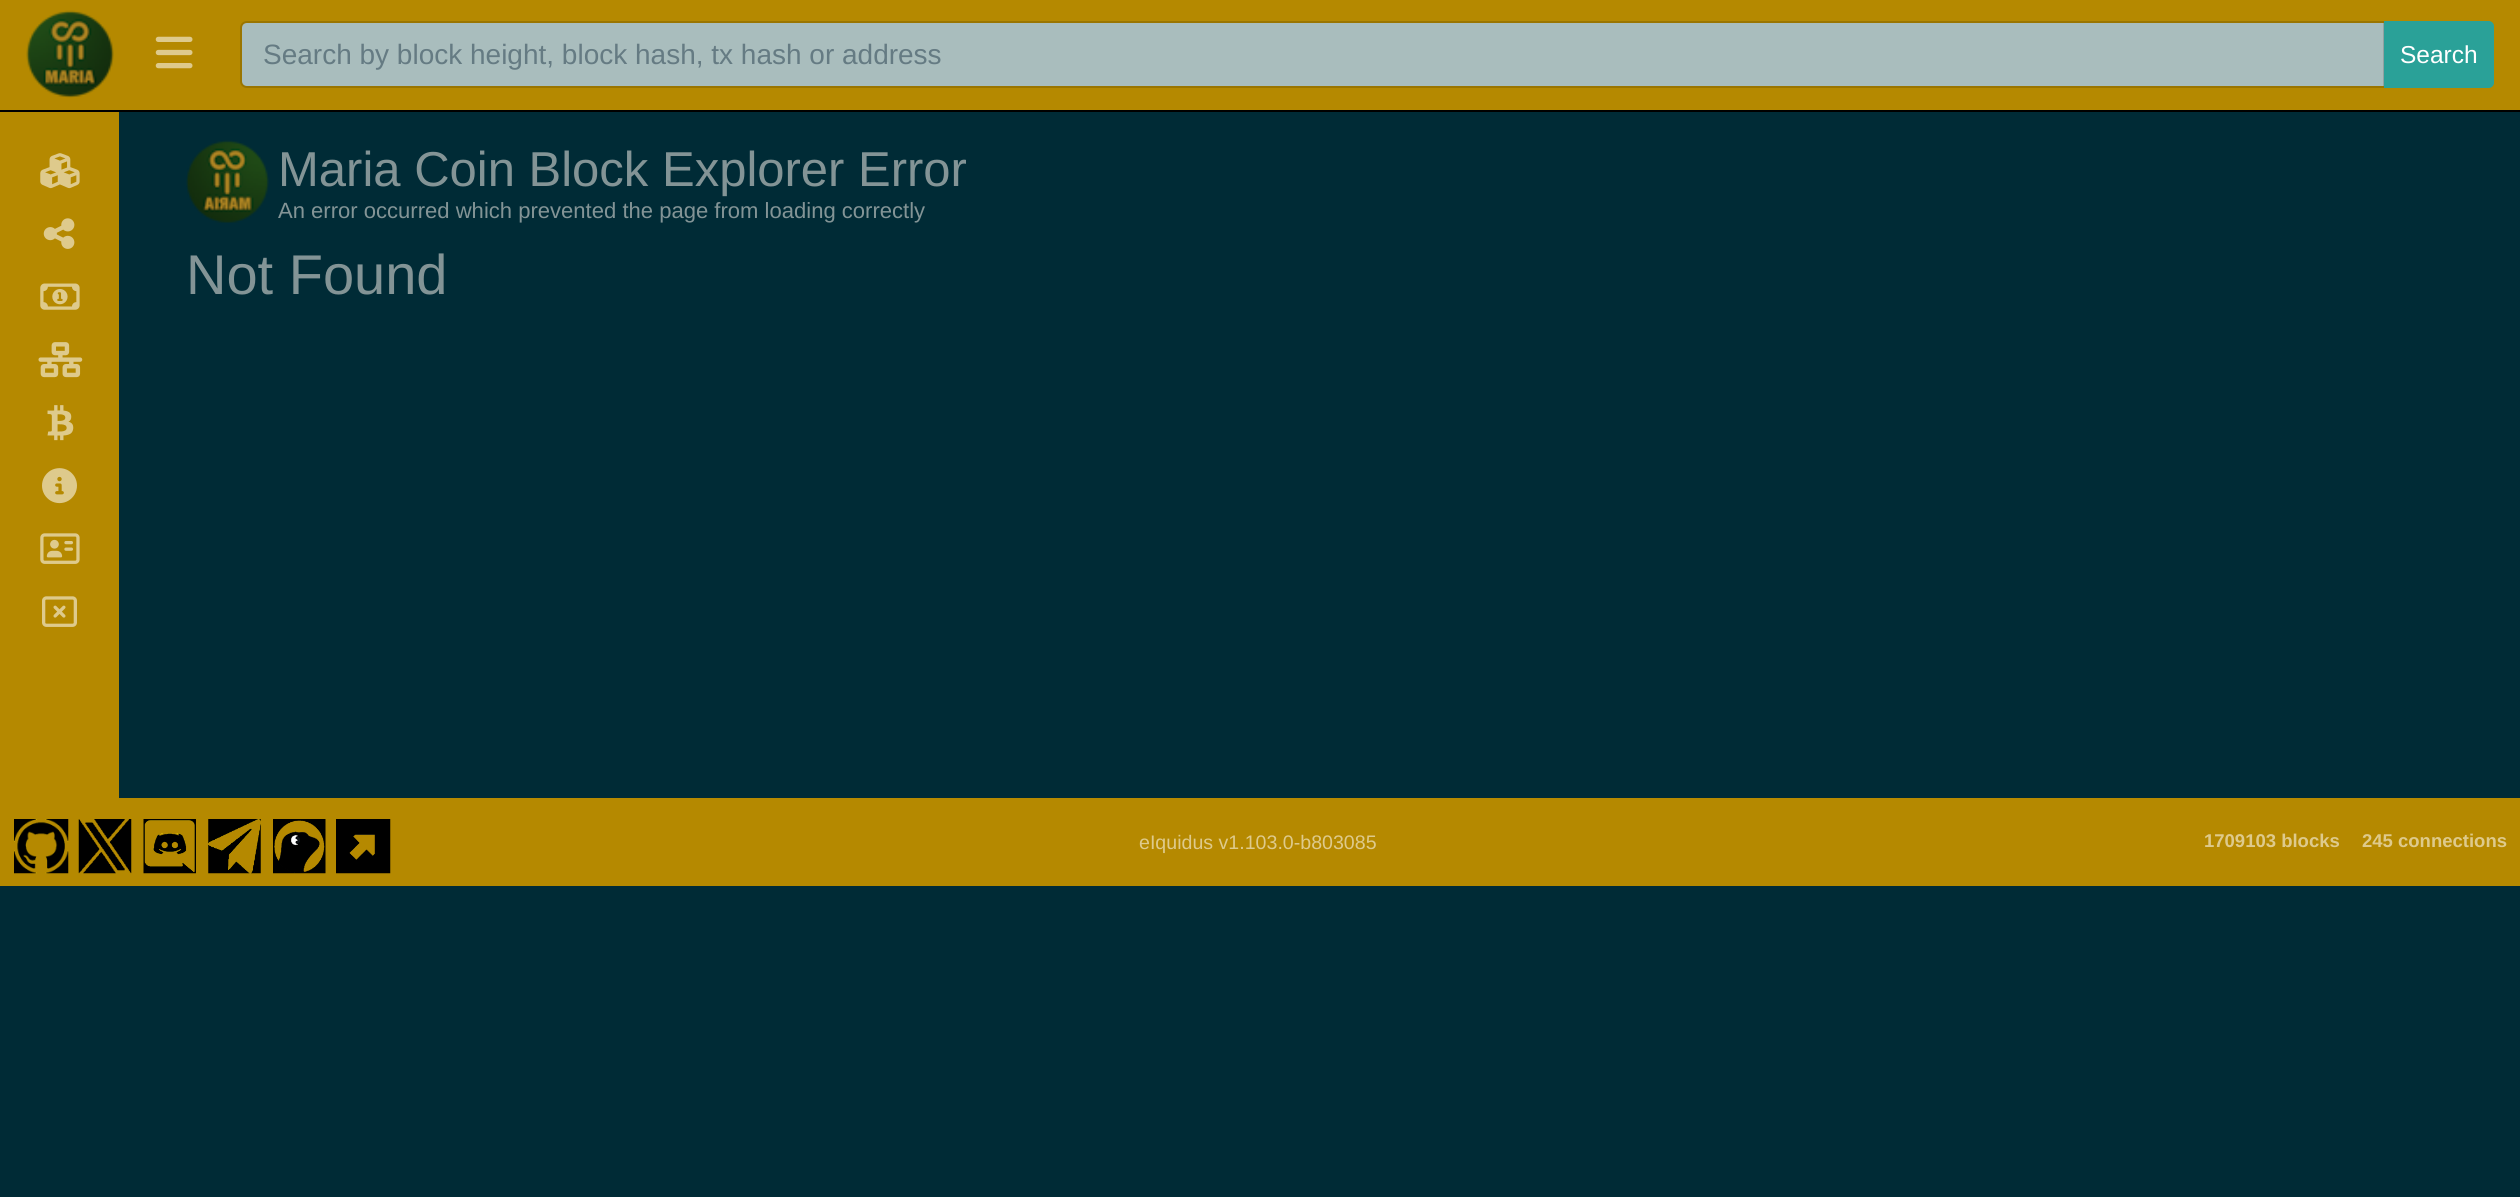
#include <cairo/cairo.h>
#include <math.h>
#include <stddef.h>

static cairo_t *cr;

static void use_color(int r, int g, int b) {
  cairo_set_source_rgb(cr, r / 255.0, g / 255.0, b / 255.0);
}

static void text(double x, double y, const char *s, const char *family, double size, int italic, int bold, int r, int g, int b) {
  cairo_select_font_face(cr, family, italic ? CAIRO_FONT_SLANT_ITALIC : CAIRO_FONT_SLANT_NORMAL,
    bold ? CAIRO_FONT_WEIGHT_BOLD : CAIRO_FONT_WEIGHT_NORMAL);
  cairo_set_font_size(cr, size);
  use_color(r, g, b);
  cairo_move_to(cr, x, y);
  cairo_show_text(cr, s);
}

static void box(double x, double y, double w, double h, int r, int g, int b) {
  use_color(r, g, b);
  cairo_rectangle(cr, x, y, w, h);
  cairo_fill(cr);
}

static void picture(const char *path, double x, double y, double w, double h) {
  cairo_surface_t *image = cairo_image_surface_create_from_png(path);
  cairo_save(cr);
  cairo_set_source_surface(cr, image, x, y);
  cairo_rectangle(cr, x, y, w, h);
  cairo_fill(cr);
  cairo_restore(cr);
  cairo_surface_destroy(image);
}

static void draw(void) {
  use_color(0, 43, 54);
  cairo_paint(cr);
  box(0, 0, 2520, 110, 181, 137, 0);
  box(0, 110, 2520, 2, 0, 0, 0);
  picture("img_01.png", 26, 10, 88, 88);
  picture("img_02.png", 155, 36, 38, 33);
  use_color(169, 189, 189);
  cairo_new_path(cr);
  cairo_move_to(cr, 247, 23);
  cairo_line_to(cr, 2384, 23);
  cairo_line_to(cr, 2384, 86);
  cairo_line_to(cr, 247, 86);
  cairo_curve_to(cr, 244, 86, 242, 84, 242, 81);
  cairo_line_to(cr, 242, 28);
  cairo_curve_to(cr, 242, 25, 244, 23, 247, 23);
  cairo_close_path(cr);
  cairo_fill(cr);
  cairo_new_path(cr);
  cairo_move_to(cr, 247, 22);
  cairo_line_to(cr, 2384, 22);
  cairo_line_to(cr, 2384, 87);
  cairo_line_to(cr, 247, 87);
  cairo_curve_to(cr, 243.5, 87, 241, 84.5, 241, 81);
  cairo_line_to(cr, 241, 28);
  cairo_curve_to(cr, 241, 24.5, 243.5, 22, 247, 22);
  cairo_close_path(cr);
  cairo_set_source_rgba(cr, 0, 0, 0, 0.15);
  cairo_stroke(cr);
  use_color(42, 161, 152);
  cairo_new_path(cr);
  cairo_move_to(cr, 2385, 22);
  cairo_line_to(cr, 2489, 22);
  cairo_curve_to(cr, 2491, 22, 2493, 24, 2493, 26);
  cairo_line_to(cr, 2493, 83);
  cairo_curve_to(cr, 2493, 85, 2491, 87, 2489, 87);
  cairo_line_to(cr, 2385, 87);
  cairo_close_path(cr);
  cairo_fill_preserve(cr);
  cairo_stroke(cr);
  box(0, 112, 119, 686, 181, 137, 0);
  picture("img_03.png", 40, 153, 40, 36);
  picture("img_04.png", 43, 218, 32, 31);
  picture("img_05.png", 40, 283, 40, 27);
  picture("img_06.png", 38, 342, 45, 36);
  picture("img_07.png", 47, 405, 27, 36);
  picture("img_08.png", 42, 468, 35, 36);
  picture("img_09.png", 40, 533, 40, 31);
  picture("img_10.png", 42, 596, 35, 31);
  picture("img_11.png", 186, 140, 83, 83);
  box(0, 798, 2520, 88, 181, 137, 0);
  picture("img_12.png", 14, 819, 55, 55);
  picture("img_13.png", 78, 819, 54, 55);
  picture("img_14.png", 143, 819, 53, 55);
  picture("img_15.png", 208, 819, 53, 55);
  picture("img_16.png", 273, 819, 53, 55);
  picture("img_17.png", 336, 819, 55, 55);
  text(263, 64, "Search by block height, block hash, tx hash or address", "Liberation Sans", 28, 0, 0, 101, 123, 131);
  text(2400, 63, "Search", "Liberation Sans", 24.5, 0, 0, 255, 255, 255);
  text(278, 186, "Maria Coin Block Explorer Error", "Liberation Sans", 49, 0, 0, 131, 148, 150);
  text(278, 218, "An error occurred which prevented the page from loading correctly", "Liberation Sans", 22.05, 0, 0, 131, 148, 150);
  text(186, 294, "Not Found", "Liberation Sans", 56, 0, 0, 131, 148, 150);
  text(1139, 849, "eIquidus v1.103.0-b803085", "Liberation Sans", 19.6, 0, 0, 222, 202, 140);
  text(2204, 847, "1709103 blocks", "Liberation Sans", 18.5, 0, 1, 222, 202, 140);
  text(2362, 847, "245 connections", "Liberation Sans", 18.5, 0, 1, 222, 202, 140);
}

int main(void) {
  cairo_surface_t *surface = cairo_image_surface_create(CAIRO_FORMAT_RGB24, 2520, 1197);
  cr = cairo_create(surface);
  cairo_font_options_t *options = cairo_font_options_create();
  cairo_font_options_set_hint_metrics(options, CAIRO_HINT_METRICS_OFF);
  cairo_font_options_set_hint_style(options, CAIRO_HINT_STYLE_NONE);
  cairo_set_font_options(cr, options);
  cairo_set_miter_limit(cr, 4);
  draw();
  cairo_surface_write_to_png(surface, "out.png");
  cairo_font_options_destroy(options);
  cairo_destroy(cr);
  cairo_surface_destroy(surface);
  return 0;
}
